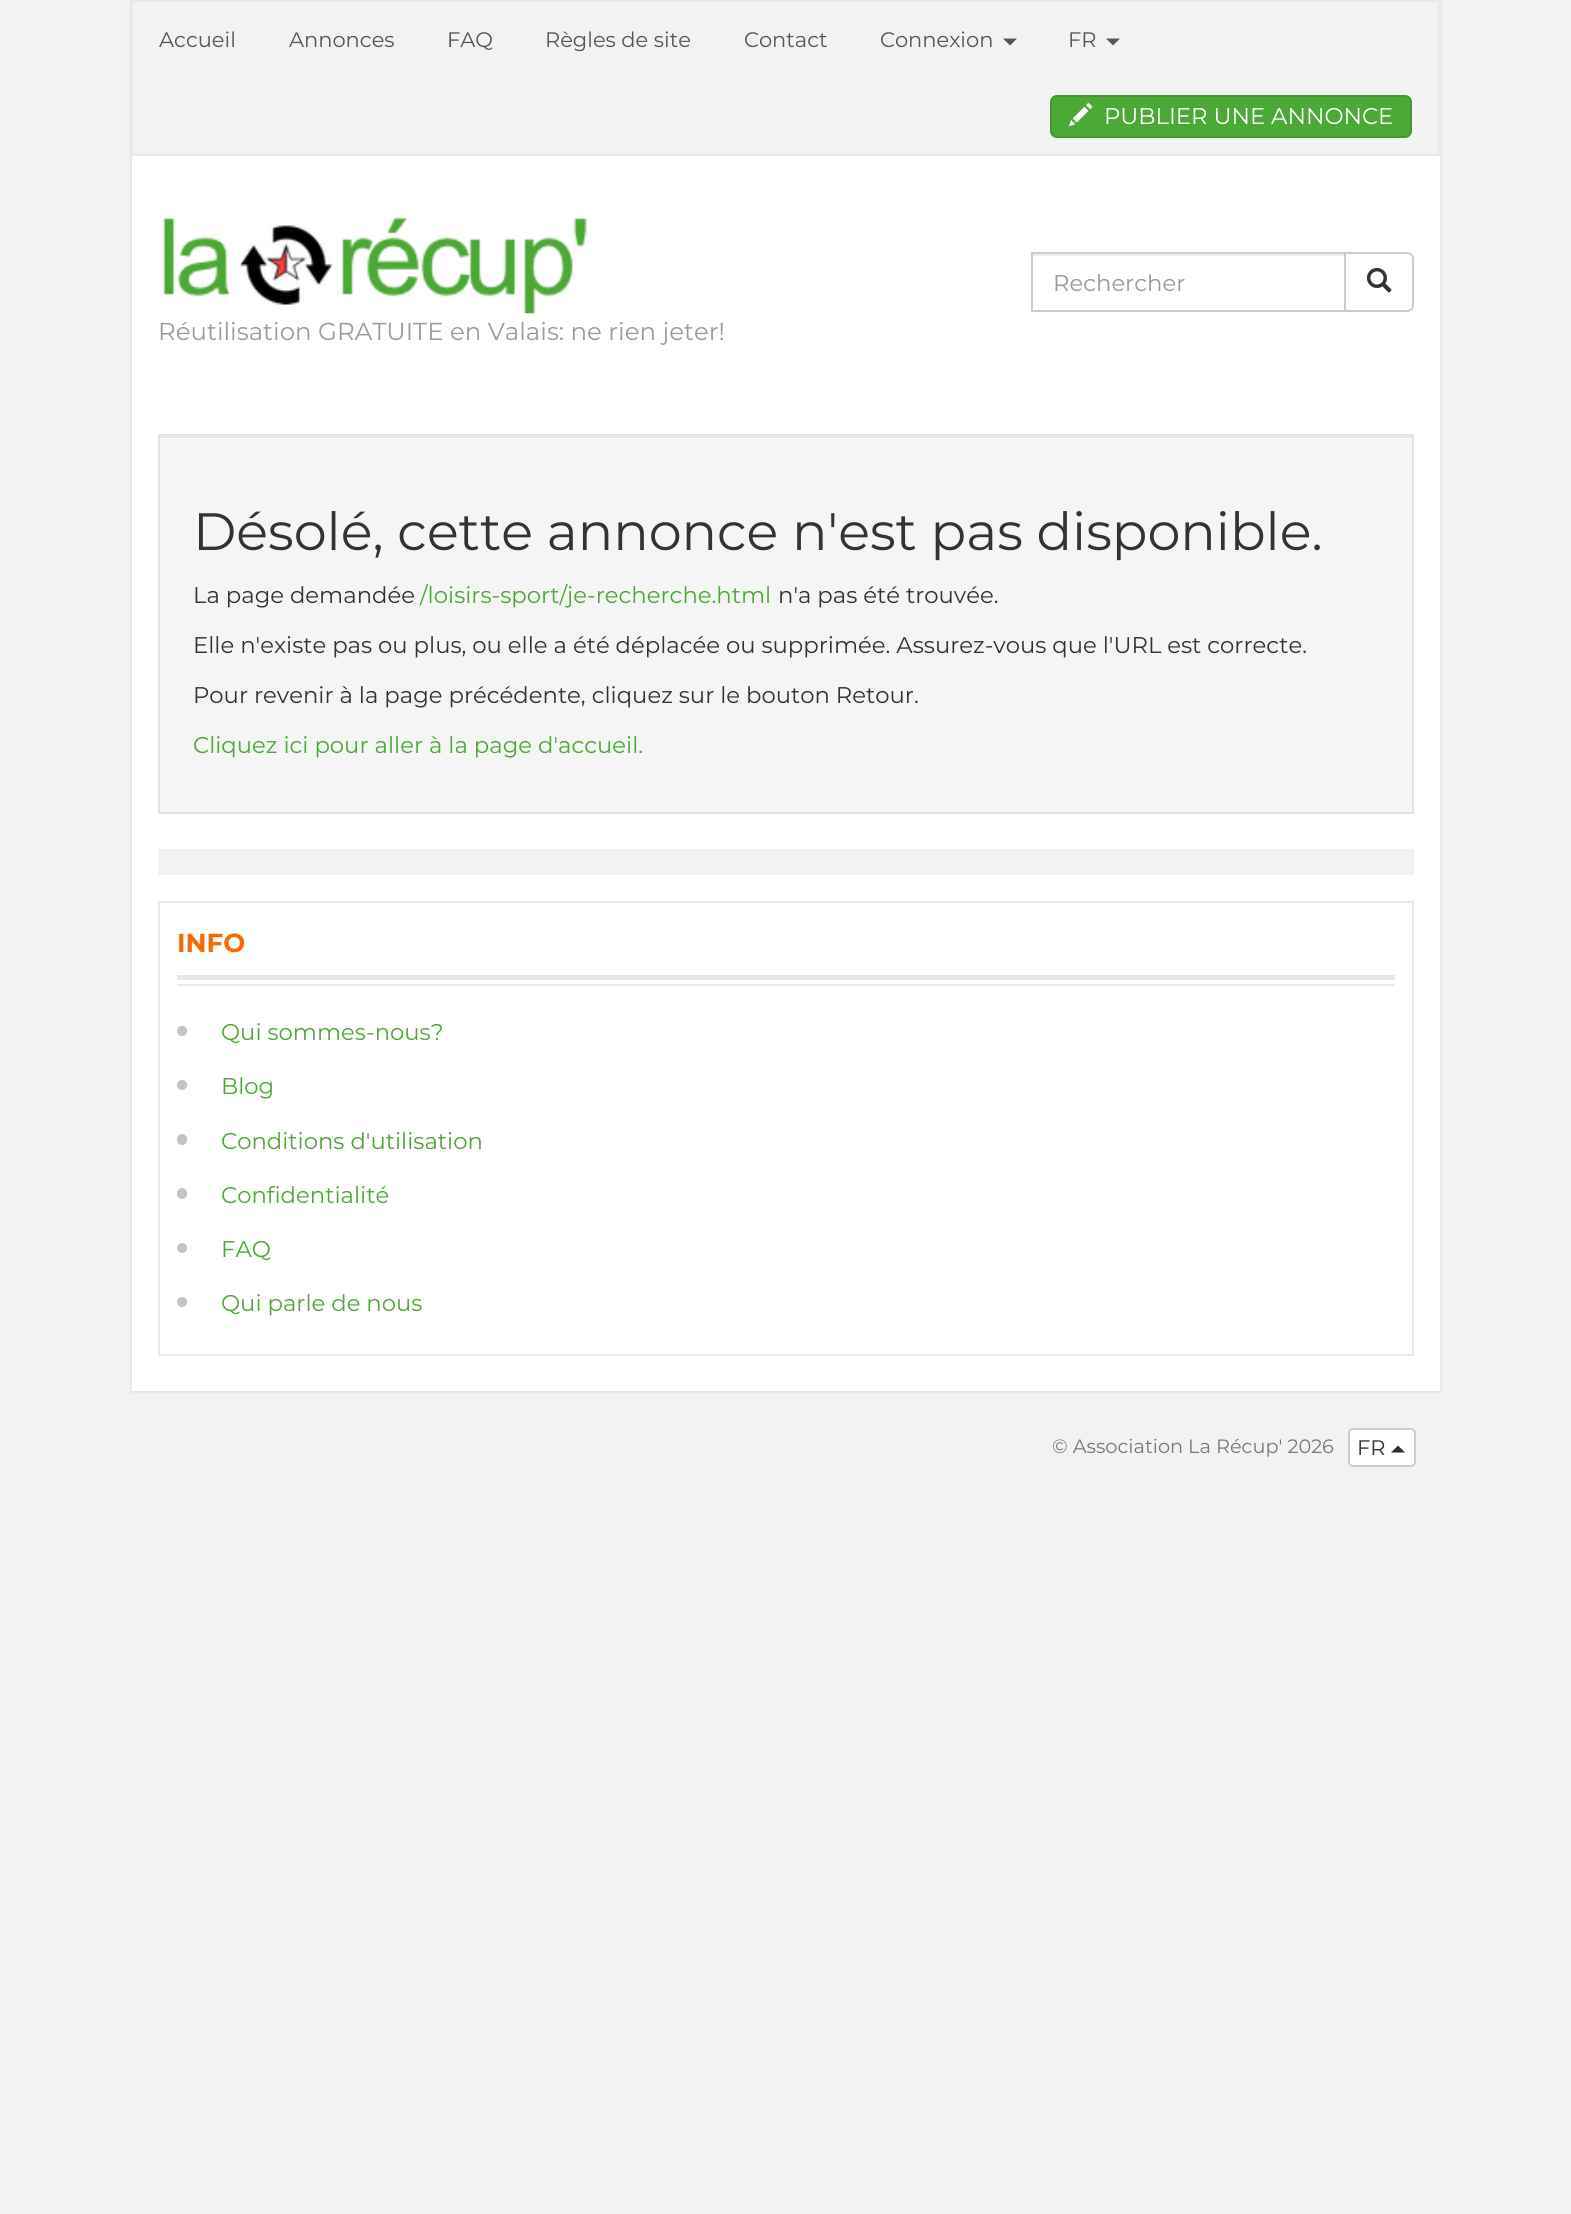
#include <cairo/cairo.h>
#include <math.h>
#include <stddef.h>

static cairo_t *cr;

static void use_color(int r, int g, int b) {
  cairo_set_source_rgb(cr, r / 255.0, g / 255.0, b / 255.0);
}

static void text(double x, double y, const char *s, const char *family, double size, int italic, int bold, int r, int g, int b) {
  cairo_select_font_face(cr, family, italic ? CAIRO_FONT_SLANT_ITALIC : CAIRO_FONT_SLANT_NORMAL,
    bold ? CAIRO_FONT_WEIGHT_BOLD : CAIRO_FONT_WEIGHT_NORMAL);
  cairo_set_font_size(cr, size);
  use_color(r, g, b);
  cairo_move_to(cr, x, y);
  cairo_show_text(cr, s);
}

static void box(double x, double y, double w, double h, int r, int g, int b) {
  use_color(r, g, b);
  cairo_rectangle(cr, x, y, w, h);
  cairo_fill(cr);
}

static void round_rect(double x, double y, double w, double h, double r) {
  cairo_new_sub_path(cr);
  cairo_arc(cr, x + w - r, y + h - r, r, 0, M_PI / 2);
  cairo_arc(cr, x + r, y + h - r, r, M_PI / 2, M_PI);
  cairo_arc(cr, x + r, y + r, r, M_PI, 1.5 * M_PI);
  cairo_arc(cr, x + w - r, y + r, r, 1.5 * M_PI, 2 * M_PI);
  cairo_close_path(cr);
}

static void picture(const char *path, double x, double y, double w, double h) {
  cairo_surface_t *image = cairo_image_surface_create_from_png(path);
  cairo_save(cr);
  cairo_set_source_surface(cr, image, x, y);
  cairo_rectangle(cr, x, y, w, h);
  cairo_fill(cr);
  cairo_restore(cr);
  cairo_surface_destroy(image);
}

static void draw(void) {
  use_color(242, 242, 242);
  cairo_paint(cr);
  box(132, 156, 1308, 1235, 255, 255, 255);
  box(1440, 0, 2, 1393, 232, 232, 232);
  box(130, 1391, 1312, 2, 232, 232, 232);
  box(130, 0, 2, 1393, 232, 232, 232);
  cairo_rectangle(cr, 132, 1, 1307, 154);
  cairo_stroke(cr);
  use_color(85, 85, 85);
  cairo_new_path(cr);
  cairo_move_to(cr, 1003, 38.5);
  cairo_line_to(cr, 1017, 38.5);
  cairo_line_to(cr, 1010, 45.5);
  cairo_close_path(cr);
  cairo_fill(cr);
  cairo_new_path(cr);
  cairo_move_to(cr, 1106, 38.5);
  cairo_line_to(cr, 1120, 38.5);
  cairo_line_to(cr, 1113, 45.5);
  cairo_close_path(cr);
  cairo_fill(cr);
  use_color(76, 168, 55);
  round_rect(1051, 96, 360, 41, 6);
  cairo_fill_preserve(cr);
  use_color(68, 151, 49);
  cairo_stroke(cr);
  picture("img_01.png", 1069, 103, 24, 24);
  box(1033, 254, 311, 2, 236, 236, 236);
  cairo_rectangle(cr, 1032, 253, 313, 58);
  use_color(204, 204, 204);
  cairo_stroke(cr);
  use_color(255, 255, 255);
  cairo_new_path(cr);
  cairo_move_to(cr, 1345, 253);
  cairo_line_to(cr, 1407, 253);
  cairo_curve_to(cr, 1410.5, 253, 1413, 255.5, 1413, 259);
  cairo_line_to(cr, 1413, 305);
  cairo_curve_to(cr, 1413, 308.5, 1410.5, 311, 1407, 311);
  cairo_line_to(cr, 1345, 311);
  cairo_close_path(cr);
  cairo_fill_preserve(cr);
  use_color(204, 204, 204);
  cairo_stroke(cr);
  picture("img_02.png", 1366, 267, 26, 26);
  picture("img_03.png", 162, 216, 425, 98);
  box(160, 438, 1252, 374, 245, 245, 245);
  box(159, 436, 1253, 2, 233, 233, 233);
  cairo_rectangle(cr, 159, 435, 1254, 378);
  use_color(227, 227, 227);
  cairo_stroke(cr);
  box(158, 849, 1256, 26, 242, 242, 242);
  cairo_rectangle(cr, 159, 902, 1254, 453);
  use_color(232, 232, 232);
  cairo_stroke(cr);
  box(177, 984, 1218, 2, 232, 232, 232);
  box(177, 975, 1218, 5, 232, 232, 232);
  use_color(196, 196, 196);
  cairo_arc(cr, 182, 1031, 5, 0, 2 * M_PI);
  cairo_fill(cr);
  cairo_arc(cr, 182, 1085, 5, 0, 2 * M_PI);
  cairo_fill(cr);
  round_rect(177, 1134, 10, 11, 5);
  cairo_fill(cr);
  round_rect(177, 1188, 10, 11, 5);
  cairo_fill(cr);
  cairo_arc(cr, 182, 1248, 5, 0, 2 * M_PI);
  cairo_fill(cr);
  cairo_arc(cr, 182, 1302, 5, 0, 2 * M_PI);
  cairo_fill(cr);
  use_color(255, 255, 255);
  round_rect(1349, 1429, 66, 37, 4);
  cairo_fill_preserve(cr);
  use_color(204, 204, 204);
  cairo_stroke(cr);
  use_color(51, 51, 51);
  cairo_new_path(cr);
  cairo_move_to(cr, 1405, 1452.5);
  cairo_line_to(cr, 1391, 1452.5);
  cairo_line_to(cr, 1398, 1445.5);
  cairo_close_path(cr);
  cairo_fill(cr);
  text(159, 47, "Accueil", "Montserrat", 21, 0, 0, 85, 85, 85);
  text(289, 47, "Annonces", "Montserrat", 21, 0, 0, 85, 85, 85);
  text(447, 47, "FAQ", "Montserrat", 21, 0, 0, 85, 85, 85);
  text(545, 47, "Règles de site", "Montserrat", 21, 0, 0, 85, 85, 85);
  text(744, 47, "Contact", "Montserrat", 21, 0, 0, 85, 85, 85);
  text(880, 47, "Connexion", "Montserrat", 21, 0, 0, 85, 85, 85);
  text(1068, 47, "FR", "Montserrat", 21, 0, 0, 85, 85, 85);
  text(1104, 124, "PUBLIER UNE ANNONCE", "Montserrat", 22.75, 0, 0, 255, 255, 255);
  text(1053, 291, "Rechercher", "Montserrat", 22.75, 0, 0, 153, 153, 153);
  text(158, 340, "Réutilisation GRATUITE en Valais: ne rien jeter!", "Montserrat", 24.5, 0, 0, 151, 156, 163);
  text(193, 550, "Désolé, cette annonce n'est pas disponible.", "Montserrat", 52.5, 0, 0, 51, 51, 51);
  text(193, 603, "La page demandée", "Montserrat", 22.75, 0, 0, 51, 51, 51);
  text(420, 603, "/loisirs-sport/je-recherche.html", "Montserrat", 22.75, 0, 0, 76, 168, 55);
  text(778, 603, "n'a pas été trouvée.", "Montserrat", 22.75, 0, 0, 51, 51, 51);
  text(193, 653, "Elle n'existe pas ou plus, ou elle a été déplacée ou supprimée. Assurez-vous que l'URL est correcte.", "Montserrat", 22.75, 0, 0, 51, 51, 51);
  text(193, 703, "Pour revenir à la page précédente, cliquez sur le bouton Retour.", "Montserrat", 22.75, 0, 0, 51, 51, 51);
  text(193, 753, "Cliquez ici pour aller à la page d'accueil.", "Montserrat", 22.75, 0, 0, 76, 168, 55);
  text(177, 952, "INFO", "Montserrat", 26, 0, 1, 250, 105, 0);
  text(221, 1040, "Qui sommes-nous?", "Montserrat", 22.75, 0, 0, 76, 168, 55);
  text(221, 1094, "Blog", "Montserrat", 22.75, 0, 0, 76, 168, 55);
  text(221, 1149, "Conditions d'utilisation", "Montserrat", 22.75, 0, 0, 76, 168, 55);
  text(221, 1203, "Confidentialité", "Montserrat", 22.75, 0, 0, 76, 168, 55);
  text(221, 1257, "FAQ", "Montserrat", 22.75, 0, 0, 76, 168, 55);
  text(221, 1311, "Qui parle de nous", "Montserrat", 22.75, 0, 0, 76, 168, 55);
  text(1052, 1453, "© Association La Récup' 2026", "Montserrat", 19.3, 0, 0, 119, 119, 119);
  text(1357, 1455, "FR", "Montserrat", 21, 0, 0, 51, 51, 51);
}

int main(void) {
  cairo_surface_t *surface = cairo_image_surface_create(CAIRO_FORMAT_RGB24, 1571, 2214);
  cr = cairo_create(surface);
  cairo_font_options_t *options = cairo_font_options_create();
  cairo_font_options_set_hint_metrics(options, CAIRO_HINT_METRICS_OFF);
  cairo_font_options_set_hint_style(options, CAIRO_HINT_STYLE_NONE);
  cairo_set_font_options(cr, options);
  cairo_set_miter_limit(cr, 4);
  draw();
  cairo_surface_write_to_png(surface, "out.png");
  cairo_font_options_destroy(options);
  cairo_destroy(cr);
  cairo_surface_destroy(surface);
  return 0;
}
